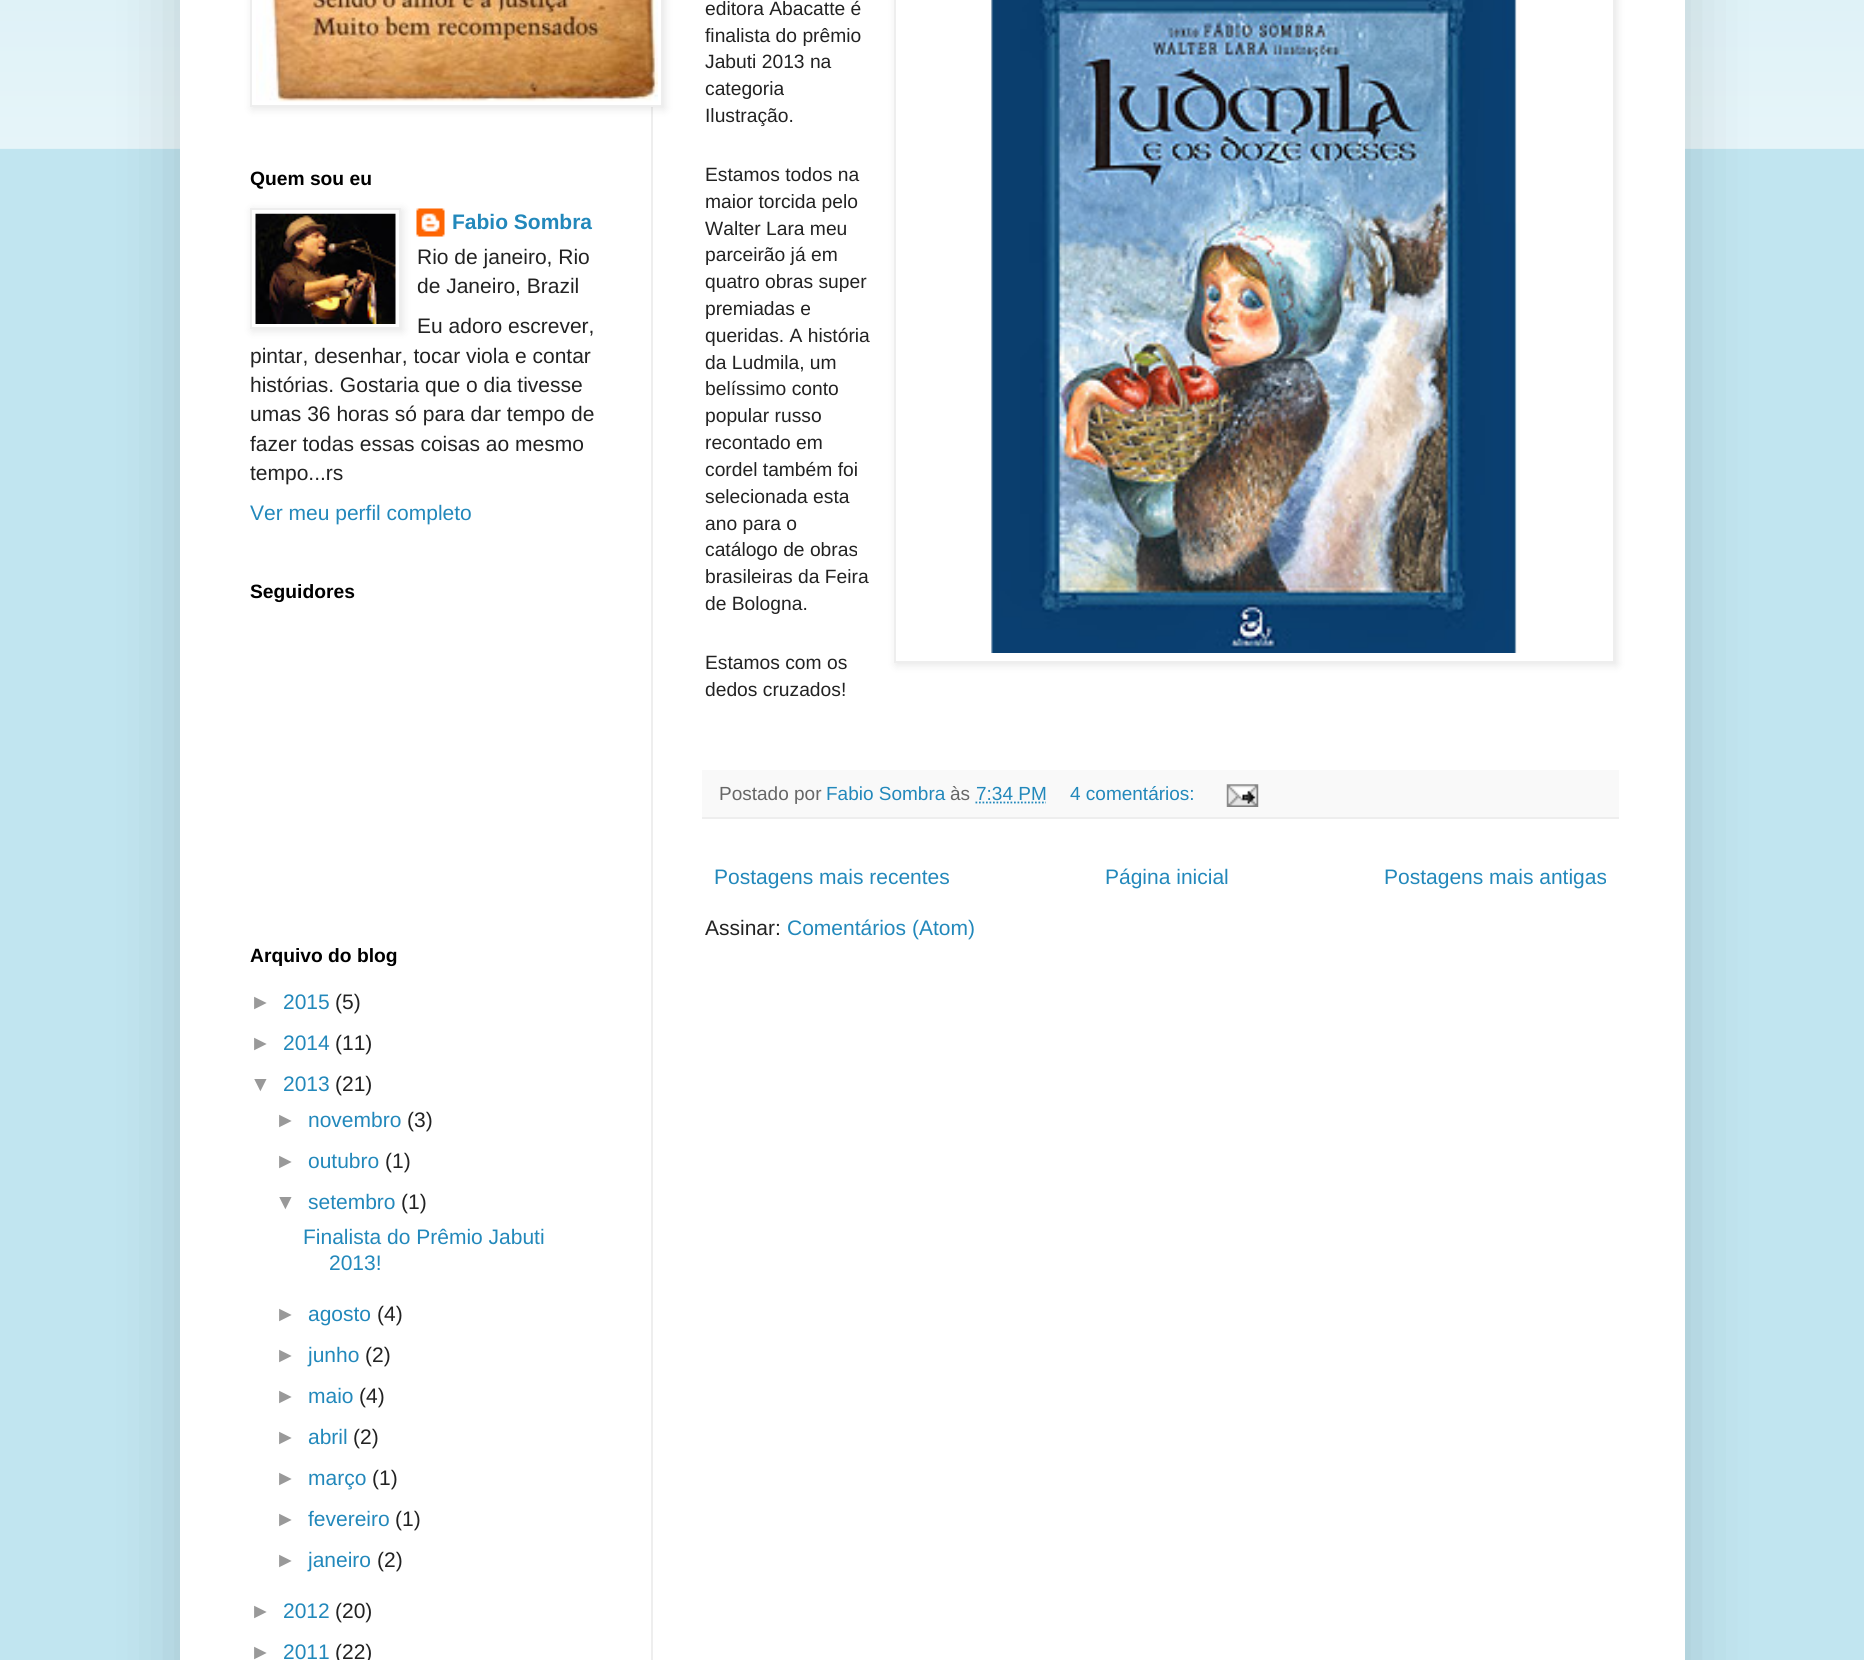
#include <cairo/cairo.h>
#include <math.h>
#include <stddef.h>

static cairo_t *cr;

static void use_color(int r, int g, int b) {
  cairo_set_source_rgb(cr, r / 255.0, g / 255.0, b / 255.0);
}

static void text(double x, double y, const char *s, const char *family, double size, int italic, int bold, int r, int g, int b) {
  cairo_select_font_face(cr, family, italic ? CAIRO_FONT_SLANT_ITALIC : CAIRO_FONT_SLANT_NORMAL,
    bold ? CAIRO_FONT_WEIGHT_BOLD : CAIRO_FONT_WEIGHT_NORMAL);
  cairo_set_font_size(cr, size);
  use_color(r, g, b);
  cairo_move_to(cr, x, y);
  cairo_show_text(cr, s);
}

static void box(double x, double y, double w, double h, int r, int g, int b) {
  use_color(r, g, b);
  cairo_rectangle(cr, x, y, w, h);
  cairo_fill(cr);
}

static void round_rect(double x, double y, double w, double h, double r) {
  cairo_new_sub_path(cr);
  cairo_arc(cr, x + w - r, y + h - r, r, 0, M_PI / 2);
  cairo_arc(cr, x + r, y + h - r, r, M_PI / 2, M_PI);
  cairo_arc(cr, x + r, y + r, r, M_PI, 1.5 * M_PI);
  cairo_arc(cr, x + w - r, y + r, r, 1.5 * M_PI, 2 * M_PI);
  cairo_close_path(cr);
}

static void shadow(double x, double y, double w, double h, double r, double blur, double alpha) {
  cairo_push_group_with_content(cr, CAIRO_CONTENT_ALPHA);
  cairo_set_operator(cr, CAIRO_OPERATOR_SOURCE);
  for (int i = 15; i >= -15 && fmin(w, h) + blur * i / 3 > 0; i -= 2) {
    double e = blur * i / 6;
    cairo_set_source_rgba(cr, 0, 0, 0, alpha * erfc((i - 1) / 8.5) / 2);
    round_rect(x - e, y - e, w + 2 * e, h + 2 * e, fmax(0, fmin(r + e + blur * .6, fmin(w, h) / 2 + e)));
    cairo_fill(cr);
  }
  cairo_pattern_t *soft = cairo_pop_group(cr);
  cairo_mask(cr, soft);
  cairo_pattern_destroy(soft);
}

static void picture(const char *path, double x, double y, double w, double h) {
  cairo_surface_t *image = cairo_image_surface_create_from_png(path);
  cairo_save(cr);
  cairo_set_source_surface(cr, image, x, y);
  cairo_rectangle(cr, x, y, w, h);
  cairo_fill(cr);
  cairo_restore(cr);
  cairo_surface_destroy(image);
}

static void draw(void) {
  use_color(193, 229, 240);
  cairo_paint(cr);
  picture("img_01.png", 0, 0, 1864, 149);
  use_color(0, 0, 0);
  shadow(180, -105, 1505, 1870, 0, 35, 0.15);
  box(180, 0, 1505, 1660, 255, 255, 255);
  box(651, 107, 2, 1553, 238, 238, 238);
  use_color(0, 0, 0);
  shadow(252, -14, 413, 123, 0, 4.5, 0.1);
  use_color(255, 255, 255);
  cairo_rectangle(cr, 251, -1, 411, 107);
  cairo_fill_preserve(cr);
  use_color(238, 238, 238);
  cairo_stroke(cr);
  picture("img_02.png", 256, 0, 402, 102);
  picture("img_04.png", 416, 208, 29, 29);
  use_color(0, 0, 0);
  shadow(252, 210, 151, 121, 0, 4.5, 0.1);
  use_color(255, 255, 255);
  cairo_rectangle(cr, 251, 209, 149, 119);
  cairo_fill_preserve(cr);
  use_color(238, 238, 238);
  cairo_stroke(cr);
  picture("img_03.png", 255, 213, 141, 111);
  use_color(0, 0, 0);
  shadow(896, -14, 721, 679, 0, 4.5, 0.1);
  use_color(255, 255, 255);
  cairo_rectangle(cr, 895, -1, 719, 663);
  cairo_fill_preserve(cr);
  use_color(238, 238, 238);
  cairo_stroke(cr);
  picture("img_05.png", 991, 0, 529, 653);
  box(702, 770, 917, 47, 249, 249, 249);
  box(702, 817, 917, 2, 238, 238, 238);
  cairo_new_path(cr);
  cairo_move_to(cr, 975.5, 802.5);
  cairo_line_to(cr, 1046, 802.5);
  use_color(34, 136, 187);
  cairo_set_line_width(cr, 1.8);
  cairo_set_dash(cr, (double[]){1.75, 1.75}, 2, 0);
  cairo_stroke(cr);
  picture("img_06.png", 1226, 784, 33, 23);
  text(250, 185, "Quem sou eu", "Liberation Sans", 19.25, 0, 1, 0, 0, 0);
  text(452, 229, "Fabio Sombra", "Liberation Sans", 21, 0, 1, 34, 136, 187);
  text(417, 264, "Rio de janeiro, Rio", "Liberation Sans", 21, 0, 0, 34, 34, 34);
  text(417, 293, "de Janeiro, Brazil", "Liberation Sans", 21, 0, 0, 34, 34, 34);
  text(417, 333, "Eu adoro escrever,", "Liberation Sans", 21, 0, 0, 34, 34, 34);
  text(250, 363, "pintar, desenhar, tocar viola e contar", "Liberation Sans", 21, 0, 0, 34, 34, 34);
  text(250, 392, "histórias. Gostaria que o dia tivesse", "Liberation Sans", 21, 0, 0, 34, 34, 34);
  text(250, 421, "umas 36 horas só para dar tempo de", "Liberation Sans", 21, 0, 0, 34, 34, 34);
  text(250, 451, "fazer todas essas coisas ao mesmo", "Liberation Sans", 21, 0, 0, 34, 34, 34);
  text(250, 480, "tempo...rs", "Liberation Sans", 21, 0, 0, 34, 34, 34);
  text(250, 520, "Ver meu perfil completo", "Liberation Sans", 21, 0, 0, 34, 136, 187);
  text(250, 598, "Seguidores", "Liberation Sans", 19.25, 0, 1, 0, 0, 0);
  text(250, 962, "Arquivo do blog", "Liberation Sans", 19.25, 0, 1, 0, 0, 0);
  text(250, 1009, "►", "Liberation Sans", 21, 0, 0, 153, 153, 153);
  text(283, 1009, "2015", "Liberation Sans", 21, 0, 0, 34, 136, 187);
  text(335, 1009, "(5)", "Liberation Sans", 21, 0, 0, 34, 34, 34);
  text(250, 1050, "►", "Liberation Sans", 21, 0, 0, 153, 153, 153);
  text(283, 1050, "2014", "Liberation Sans", 21, 0, 0, 34, 136, 187);
  text(335, 1050, "(11)", "Liberation Sans", 21, 0, 0, 34, 34, 34);
  text(250, 1091, "▼", "Liberation Sans", 21, 0, 0, 153, 153, 153);
  text(283, 1091, "2013", "Liberation Sans", 21, 0, 0, 34, 136, 187);
  text(335, 1091, "(21)", "Liberation Sans", 21, 0, 0, 34, 34, 34);
  text(275, 1127, "►", "Liberation Sans", 21, 0, 0, 153, 153, 153);
  text(308, 1127, "novembro", "Liberation Sans", 21, 0, 0, 34, 136, 187);
  text(407, 1127, "(3)", "Liberation Sans", 21, 0, 0, 34, 34, 34);
  text(275, 1168, "►", "Liberation Sans", 21, 0, 0, 153, 153, 153);
  text(308, 1168, "outubro", "Liberation Sans", 21, 0, 0, 34, 136, 187);
  text(385, 1168, "(1)", "Liberation Sans", 21, 0, 0, 34, 34, 34);
  text(275, 1209, "▼", "Liberation Sans", 21, 0, 0, 153, 153, 153);
  text(308, 1209, "setembro", "Liberation Sans", 21, 0, 0, 34, 136, 187);
  text(401, 1209, "(1)", "Liberation Sans", 21, 0, 0, 34, 34, 34);
  text(303, 1244, "Finalista do Prêmio Jabuti", "Liberation Sans", 21, 0, 0, 34, 136, 187);
  text(329, 1270, "2013!", "Liberation Sans", 21, 0, 0, 34, 136, 187);
  text(275, 1321, "►", "Liberation Sans", 21, 0, 0, 153, 153, 153);
  text(308, 1321, "agosto", "Liberation Sans", 21, 0, 0, 34, 136, 187);
  text(377, 1321, "(4)", "Liberation Sans", 21, 0, 0, 34, 34, 34);
  text(275, 1362, "►", "Liberation Sans", 21, 0, 0, 153, 153, 153);
  text(308, 1362, "junho", "Liberation Sans", 21, 0, 0, 34, 136, 187);
  text(365, 1362, "(2)", "Liberation Sans", 21, 0, 0, 34, 34, 34);
  text(275, 1403, "►", "Liberation Sans", 21, 0, 0, 153, 153, 153);
  text(308, 1403, "maio", "Liberation Sans", 21, 0, 0, 34, 136, 187);
  text(359, 1403, "(4)", "Liberation Sans", 21, 0, 0, 34, 34, 34);
  text(275, 1444, "►", "Liberation Sans", 21, 0, 0, 153, 153, 153);
  text(308, 1444, "abril", "Liberation Sans", 21, 0, 0, 34, 136, 187);
  text(353, 1444, "(2)", "Liberation Sans", 21, 0, 0, 34, 34, 34);
  text(275, 1485, "►", "Liberation Sans", 21, 0, 0, 153, 153, 153);
  text(308, 1485, "março", "Liberation Sans", 21, 0, 0, 34, 136, 187);
  text(372, 1485, "(1)", "Liberation Sans", 21, 0, 0, 34, 34, 34);
  text(275, 1526, "►", "Liberation Sans", 21, 0, 0, 153, 153, 153);
  text(308, 1526, "fevereiro", "Liberation Sans", 21, 0, 0, 34, 136, 187);
  text(395, 1526, "(1)", "Liberation Sans", 21, 0, 0, 34, 34, 34);
  text(275, 1567, "►", "Liberation Sans", 21, 0, 0, 153, 153, 153);
  text(308, 1567, "janeiro", "Liberation Sans", 21, 0, 0, 34, 136, 187);
  text(377, 1567, "(2)", "Liberation Sans", 21, 0, 0, 34, 34, 34);
  text(250, 1618, "►", "Liberation Sans", 21, 0, 0, 153, 153, 153);
  text(283, 1618, "2012", "Liberation Sans", 21, 0, 0, 34, 136, 187);
  text(335, 1618, "(20)", "Liberation Sans", 21, 0, 0, 34, 34, 34);
  text(250, 1659, "►", "Liberation Sans", 21, 0, 0, 153, 153, 153);
  text(283, 1659, "2011", "Liberation Sans", 21, 0, 0, 34, 136, 187);
  text(335, 1659, "(22)", "Liberation Sans", 21, 0, 0, 34, 34, 34);
  text(705, 15, "editora Abacatte é", "Liberation Sans", 19.25, 0, 0, 34, 34, 34);
  text(705, 42, "finalista do prêmio", "Liberation Sans", 19.25, 0, 0, 34, 34, 34);
  text(705, 68, "Jabuti 2013 na", "Liberation Sans", 19.25, 0, 0, 34, 34, 34);
  text(705, 95, "categoria", "Liberation Sans", 19.25, 0, 0, 34, 34, 34);
  text(705, 122, "Ilustração.", "Liberation Sans", 19.25, 0, 0, 34, 34, 34);
  text(705, 181, "Estamos todos na", "Liberation Sans", 19.25, 0, 0, 34, 34, 34);
  text(705, 208, "maior torcida pelo", "Liberation Sans", 19.25, 0, 0, 34, 34, 34);
  text(705, 235, "Walter Lara meu", "Liberation Sans", 19.25, 0, 0, 34, 34, 34);
  text(705, 261, "parceirão já em", "Liberation Sans", 19.25, 0, 0, 34, 34, 34);
  text(705, 288, "quatro obras super", "Liberation Sans", 19.25, 0, 0, 34, 34, 34);
  text(705, 315, "premiadas e", "Liberation Sans", 19.25, 0, 0, 34, 34, 34);
  text(705, 342, "queridas. A história", "Liberation Sans", 19.25, 0, 0, 34, 34, 34);
  text(705, 369, "da Ludmila, um", "Liberation Sans", 19.25, 0, 0, 34, 34, 34);
  text(705, 395, "belíssimo conto", "Liberation Sans", 19.25, 0, 0, 34, 34, 34);
  text(705, 422, "popular russo", "Liberation Sans", 19.25, 0, 0, 34, 34, 34);
  text(705, 449, "recontado em", "Liberation Sans", 19.25, 0, 0, 34, 34, 34);
  text(705, 476, "cordel também foi", "Liberation Sans", 19.25, 0, 0, 34, 34, 34);
  text(705, 503, "selecionada esta", "Liberation Sans", 19.25, 0, 0, 34, 34, 34);
  text(705, 530, "ano para o", "Liberation Sans", 19.25, 0, 0, 34, 34, 34);
  text(705, 556, "catálogo de obras", "Liberation Sans", 19.25, 0, 0, 34, 34, 34);
  text(705, 583, "brasileiras da Feira", "Liberation Sans", 19.25, 0, 0, 34, 34, 34);
  text(705, 610, "de Bologna.", "Liberation Sans", 19.25, 0, 0, 34, 34, 34);
  text(705, 669, "Estamos com os", "Liberation Sans", 19.25, 0, 0, 34, 34, 34);
  text(705, 696, "dedos cruzados!", "Liberation Sans", 19.25, 0, 0, 34, 34, 34);
  text(719, 800, "Postado por", "Liberation Sans", 19, 0, 0, 102, 102, 102);
  text(826, 800, "Fabio Sombra", "Liberation Sans", 19, 0, 0, 34, 136, 187);
  text(950, 800, "às", "Liberation Sans", 19, 0, 0, 102, 102, 102);
  text(976, 800, "7:34 PM", "Liberation Sans", 19, 0, 0, 34, 136, 187);
  text(1070, 800, "4 comentários:", "Liberation Sans", 19, 0, 0, 34, 136, 187);
  text(714, 884, "Postagens mais recentes", "Liberation Sans", 21, 0, 0, 34, 136, 187);
  text(1105, 884, "Página inicial", "Liberation Sans", 21, 0, 0, 34, 136, 187);
  text(1384, 884, "Postagens mais antigas", "Liberation Sans", 21, 0, 0, 34, 136, 187);
  text(705, 935, "Assinar:", "Liberation Sans", 21, 0, 0, 34, 34, 34);
  text(787, 935, "Comentários (Atom)", "Liberation Sans", 21, 0, 0, 34, 136, 187);
}

int main(void) {
  cairo_surface_t *surface = cairo_image_surface_create(CAIRO_FORMAT_RGB24, 1864, 1660);
  cr = cairo_create(surface);
  cairo_font_options_t *options = cairo_font_options_create();
  cairo_font_options_set_hint_metrics(options, CAIRO_HINT_METRICS_OFF);
  cairo_font_options_set_hint_style(options, CAIRO_HINT_STYLE_NONE);
  cairo_set_font_options(cr, options);
  cairo_set_miter_limit(cr, 4);
  draw();
  cairo_surface_write_to_png(surface, "out.png");
  cairo_font_options_destroy(options);
  cairo_destroy(cr);
  cairo_surface_destroy(surface);
  return 0;
}
